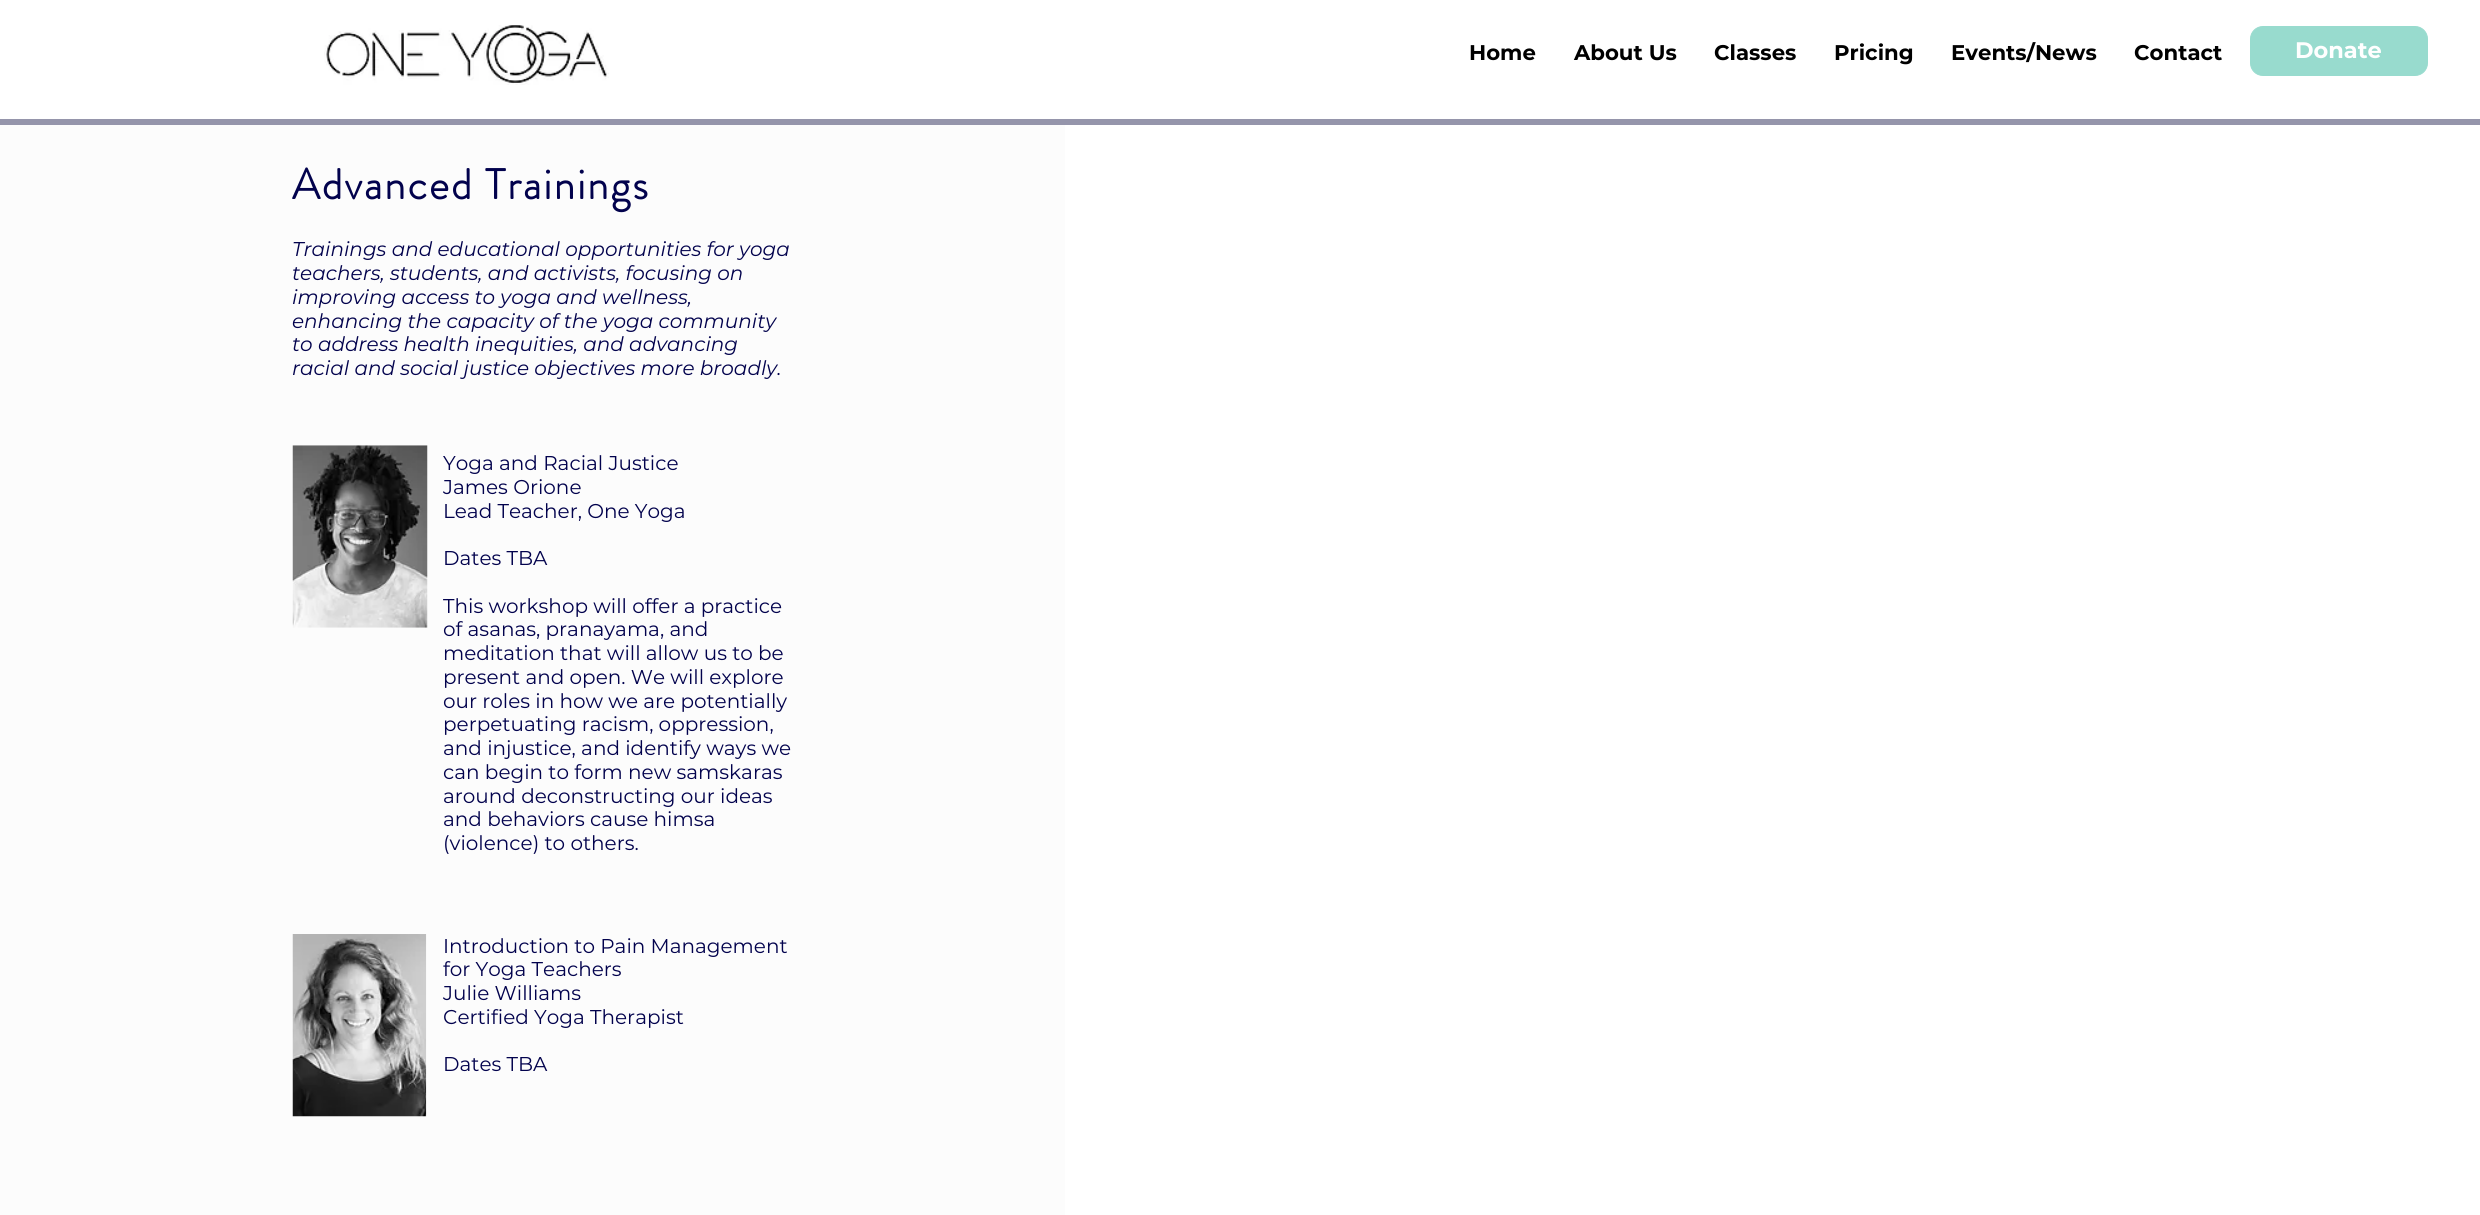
#include <cairo/cairo.h>
#include <math.h>
#include <stddef.h>

static cairo_t *cr;

static void use_color(int r, int g, int b) {
  cairo_set_source_rgb(cr, r / 255.0, g / 255.0, b / 255.0);
}

static void text(double x, double y, const char *s, const char *family, double size, int italic, int bold, int r, int g, int b) {
  cairo_select_font_face(cr, family, italic ? CAIRO_FONT_SLANT_ITALIC : CAIRO_FONT_SLANT_NORMAL,
    bold ? CAIRO_FONT_WEIGHT_BOLD : CAIRO_FONT_WEIGHT_NORMAL);
  cairo_set_font_size(cr, size);
  use_color(r, g, b);
  cairo_move_to(cr, x, y);
  cairo_show_text(cr, s);
}

static void spaced_text(double x, double y, const char *s, double letter, double word) {
  cairo_move_to(cr, x, y);
  while (*s) {
    char ch[5] = {0};
    int n = 0;
    do ch[n++] = *s++; while ((*s & 0xC0) == 0x80);
    cairo_show_text(cr, ch);
    cairo_rel_move_to(cr, letter + word * (*ch == ' '), 0);
  }
}

static void box(double x, double y, double w, double h, int r, int g, int b) {
  use_color(r, g, b);
  cairo_rectangle(cr, x, y, w, h);
  cairo_fill(cr);
}

static void round_rect(double x, double y, double w, double h, double r) {
  cairo_new_sub_path(cr);
  cairo_arc(cr, x + w - r, y + h - r, r, 0, M_PI / 2);
  cairo_arc(cr, x + r, y + h - r, r, M_PI / 2, M_PI);
  cairo_arc(cr, x + r, y + r, r, M_PI, 1.5 * M_PI);
  cairo_arc(cr, x + w - r, y + r, r, 1.5 * M_PI, 2 * M_PI);
  cairo_close_path(cr);
}

static void picture(const char *path, double x, double y, double w, double h) {
  cairo_surface_t *image = cairo_image_surface_create_from_png(path);
  cairo_save(cr);
  cairo_set_source_surface(cr, image, x, y);
  cairo_rectangle(cr, x, y, w, h);
  cairo_fill(cr);
  cairo_restore(cr);
  cairo_surface_destroy(image);
}

static void draw(void) {
  use_color(255, 255, 255);
  cairo_paint(cr);
  picture("img_01.png", 324, 25, 285, 60);
  use_color(152, 219, 206);
  round_rect(2250.5, 26.5, 177, 49, 12.5);
  cairo_fill_preserve(cr);
  cairo_set_line_width(cr, 1);
  cairo_stroke(cr);
  box(0, 119, 2480, 6, 149, 149, 171);
  box(0, 125, 1065, 1090, 252, 252, 252);
  picture("img_02.png", 292, 445, 136, 183);
  picture("img_03.png", 292, 934, 135, 183);
  text(1469, 60, "Home", "Montserrat", 21.25, 0, 1, 0, 0, 0);
  text(1574, 60, "About Us", "Montserrat", 21.25, 0, 1, 0, 0, 0);
  text(1714, 60, "Classes", "Montserrat", 21.25, 0, 1, 0, 0, 0);
  text(1834, 60, "Pricing", "Montserrat", 21.25, 0, 1, 0, 0, 0);
  text(1951, 60, "Events/News", "Montserrat", 21.25, 0, 1, 0, 0, 0);
  text(2134, 60, "Contact", "Montserrat", 21.25, 0, 1, 0, 0, 0);
  text(2295, 58, "Donate", "Montserrat", 22.5, 0, 1, 255, 255, 255);
  cairo_select_font_face(cr, "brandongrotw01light", CAIRO_FONT_SLANT_NORMAL, CAIRO_FONT_WEIGHT_BOLD);
  cairo_set_font_size(cr, 42.5);
  use_color(2, 2, 77);
  spaced_text(292, 199, "Advanced Trainings", 2.1, 0);
  text(292, 256, "Trainings and educational opportunities for yoga", "Montserrat", 20, 1, 0, 2, 2, 77);
  text(292, 280, "teachers, students, and activists, focusing on", "Montserrat", 20, 1, 0, 2, 2, 77);
  text(292, 304, "improving access to yoga and wellness,", "Montserrat", 20, 1, 0, 2, 2, 77);
  text(292, 328, "enhancing the capacity of the yoga community", "Montserrat", 20, 1, 0, 2, 2, 77);
  text(292, 351, "to address health inequities, and advancing", "Montserrat", 20, 1, 0, 2, 2, 77);
  text(292, 375, "racial and social justice objectives more broadly.", "Montserrat", 20, 1, 0, 2, 2, 77);
  text(443, 470, "Yoga and Racial Justice", "Montserrat", 20, 0, 0, 2, 2, 77);
  text(443, 494, "James Orione", "Montserrat", 20, 0, 0, 2, 2, 77);
  text(443, 518, "Lead Teacher, One Yoga", "Montserrat", 20, 0, 0, 2, 2, 77);
  text(443, 565, "Dates TBA", "Montserrat", 20, 0, 0, 2, 2, 77);
  text(443, 613, "This workshop will offer a practice", "Montserrat", 20, 0, 0, 2, 2, 77);
  text(443, 636, "of asanas, pranayama, and", "Montserrat", 20, 0, 0, 2, 2, 77);
  text(443, 660, "meditation that will allow us to be", "Montserrat", 20, 0, 0, 2, 2, 77);
  text(443, 684, "present and open. We will explore", "Montserrat", 20, 0, 0, 2, 2, 77);
  text(443, 708, "our roles in how we are potentially", "Montserrat", 20, 0, 0, 2, 2, 77);
  text(443, 731, "perpetuating racism, oppression,", "Montserrat", 20, 0, 0, 2, 2, 77);
  text(443, 755, "and injustice, and identify ways we", "Montserrat", 20, 0, 0, 2, 2, 77);
  text(443, 779, "can begin to form new samskaras", "Montserrat", 20, 0, 0, 2, 2, 77);
  text(443, 803, "around deconstructing our ideas", "Montserrat", 20, 0, 0, 2, 2, 77);
  text(443, 826, "and behaviors cause himsa", "Montserrat", 20, 0, 0, 2, 2, 77);
  text(443, 850, "(violence) to others.", "Montserrat", 20, 0, 0, 2, 2, 77);
  text(443, 953, "Introduction to Pain Management", "Montserrat", 20, 0, 0, 2, 2, 77);
  text(443, 976, "for Yoga Teachers", "Montserrat", 20, 0, 0, 2, 2, 77);
  text(443, 1000, "Julie Williams", "Montserrat", 20, 0, 0, 2, 2, 77);
  text(443, 1024, "Certified Yoga Therapist", "Montserrat", 20, 0, 0, 2, 2, 77);
  text(443, 1071, "Dates TBA", "Montserrat", 20, 0, 0, 2, 2, 77);
}

int main(void) {
  cairo_surface_t *surface = cairo_image_surface_create(CAIRO_FORMAT_RGB24, 2480, 1215);
  cr = cairo_create(surface);
  cairo_font_options_t *options = cairo_font_options_create();
  cairo_font_options_set_hint_metrics(options, CAIRO_HINT_METRICS_OFF);
  cairo_font_options_set_hint_style(options, CAIRO_HINT_STYLE_NONE);
  cairo_set_font_options(cr, options);
  cairo_set_miter_limit(cr, 4);
  draw();
  cairo_surface_write_to_png(surface, "out.png");
  cairo_font_options_destroy(options);
  cairo_destroy(cr);
  cairo_surface_destroy(surface);
  return 0;
}
